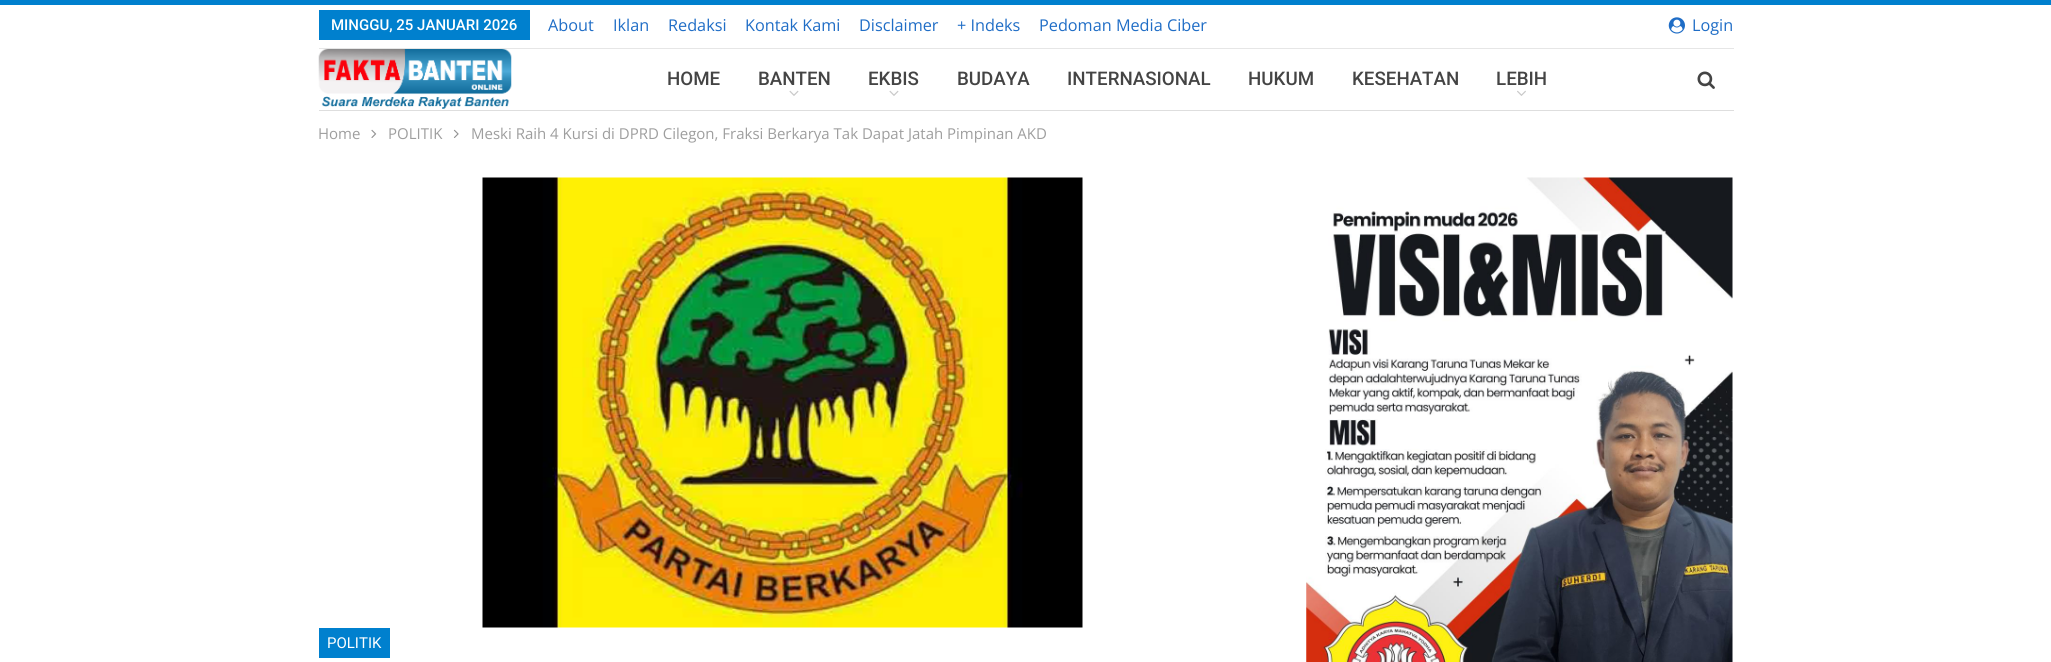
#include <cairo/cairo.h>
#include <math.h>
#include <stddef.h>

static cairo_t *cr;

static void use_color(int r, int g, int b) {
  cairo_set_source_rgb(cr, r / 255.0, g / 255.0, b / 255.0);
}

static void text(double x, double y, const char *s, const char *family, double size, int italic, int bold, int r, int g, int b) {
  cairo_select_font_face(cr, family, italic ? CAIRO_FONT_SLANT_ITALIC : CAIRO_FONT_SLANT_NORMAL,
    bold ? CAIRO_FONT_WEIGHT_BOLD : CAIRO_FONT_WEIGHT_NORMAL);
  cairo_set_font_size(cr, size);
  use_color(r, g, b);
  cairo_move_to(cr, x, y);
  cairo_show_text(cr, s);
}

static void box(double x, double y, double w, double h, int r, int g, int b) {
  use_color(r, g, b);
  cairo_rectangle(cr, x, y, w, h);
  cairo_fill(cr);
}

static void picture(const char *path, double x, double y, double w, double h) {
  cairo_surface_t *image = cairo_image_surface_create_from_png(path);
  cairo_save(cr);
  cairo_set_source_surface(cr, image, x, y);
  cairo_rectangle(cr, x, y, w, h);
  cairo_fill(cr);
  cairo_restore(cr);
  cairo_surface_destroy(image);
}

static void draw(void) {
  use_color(255, 255, 255);
  cairo_paint(cr);
  box(0, 0, 2051, 5, 0, 128, 206);
  box(319, 48, 1415, 1, 230, 230, 230);
  box(319, 10, 211, 30, 0, 128, 206);
  picture("img_01.png", 1668, 17, 17, 17);
  box(319, 110, 1415, 1, 222, 222, 222);
  picture("img_02.png", 318, 49, 194, 60);
  picture("img_03.png", 789, 90, 10, 6);
  picture("img_03.png", 889, 90, 10, 6);
  picture("img_04.png", 1517, 90, 9, 6);
  picture("img_05.png", 1697, 71, 18, 18);
  picture("img_06.png", 371, 129, 6, 9);
  picture("img_07.png", 453, 129, 6, 9);
  picture("img_08.png", 482, 177, 601, 451);
  box(319, 628, 71, 30, 0, 128, 206);
  picture("img_09.png", 1306, 177, 427, 485);
  text(331, 30, "MINGGU, 25 JANUARI 2026", "Roboto Medium", 15, 0, 0, 255, 255, 255);
  text(548, 31, "About", "Open Sans", 16.25, 0, 0, 31, 109, 198);
  text(613, 31, "Iklan", "Open Sans", 16.25, 0, 0, 31, 109, 198);
  text(668, 31, "Redaksi", "Open Sans", 16.25, 0, 0, 31, 109, 198);
  text(745, 31, "Kontak Kami", "Open Sans", 16.25, 0, 0, 31, 109, 198);
  text(859, 31, "Disclaimer", "Open Sans", 16.25, 0, 0, 31, 109, 198);
  text(957, 31, "+ Indeks", "Open Sans", 16.25, 0, 0, 31, 109, 198);
  text(1039, 31, "Pedoman Media Ciber", "Open Sans", 16.25, 0, 0, 31, 109, 198);
  text(1692, 31, "Login", "Open Sans", 16.25, 0, 0, 31, 109, 198);
  text(667, 85, "HOME", "Roboto Medium", 18.75, 0, 0, 68, 68, 68);
  text(758, 85, "BANTEN", "Roboto Medium", 18.75, 0, 0, 68, 68, 68);
  text(868, 85, "EKBIS", "Roboto Medium", 18.75, 0, 0, 68, 68, 68);
  text(957, 85, "BUDAYA", "Roboto Medium", 18.75, 0, 0, 68, 68, 68);
  text(1067, 85, "INTERNASIONAL", "Roboto Medium", 18.75, 0, 0, 68, 68, 68);
  text(1248, 85, "HUKUM", "Roboto Medium", 18.75, 0, 0, 68, 68, 68);
  text(1352, 85, "KESEHATAN", "Roboto Medium", 18.75, 0, 0, 68, 68, 68);
  text(1496, 85, "LEBIH", "Roboto Medium", 18.75, 0, 0, 68, 68, 68);
  text(318, 139, "Home", "Open Sans", 15, 0, 0, 158, 158, 158);
  text(388, 139, "POLITIK", "Open Sans", 15, 0, 0, 158, 158, 158);
  text(471, 139, "Meski Raih 4 Kursi di DPRD Cilegon, Fraksi Berkarya Tak Dapat Jatah Pimpinan AKD", "Open Sans", 15, 0, 0, 158, 158, 158);
  text(327, 648, "POLITIK", "Roboto", 15, 0, 0, 255, 255, 255);
}

int main(void) {
  cairo_surface_t *surface = cairo_image_surface_create(CAIRO_FORMAT_RGB24, 2051, 662);
  cr = cairo_create(surface);
  cairo_font_options_t *options = cairo_font_options_create();
  cairo_font_options_set_hint_metrics(options, CAIRO_HINT_METRICS_OFF);
  cairo_font_options_set_hint_style(options, CAIRO_HINT_STYLE_NONE);
  cairo_set_font_options(cr, options);
  cairo_set_miter_limit(cr, 4);
  draw();
  cairo_surface_write_to_png(surface, "out.png");
  cairo_font_options_destroy(options);
  cairo_destroy(cr);
  cairo_surface_destroy(surface);
  return 0;
}
